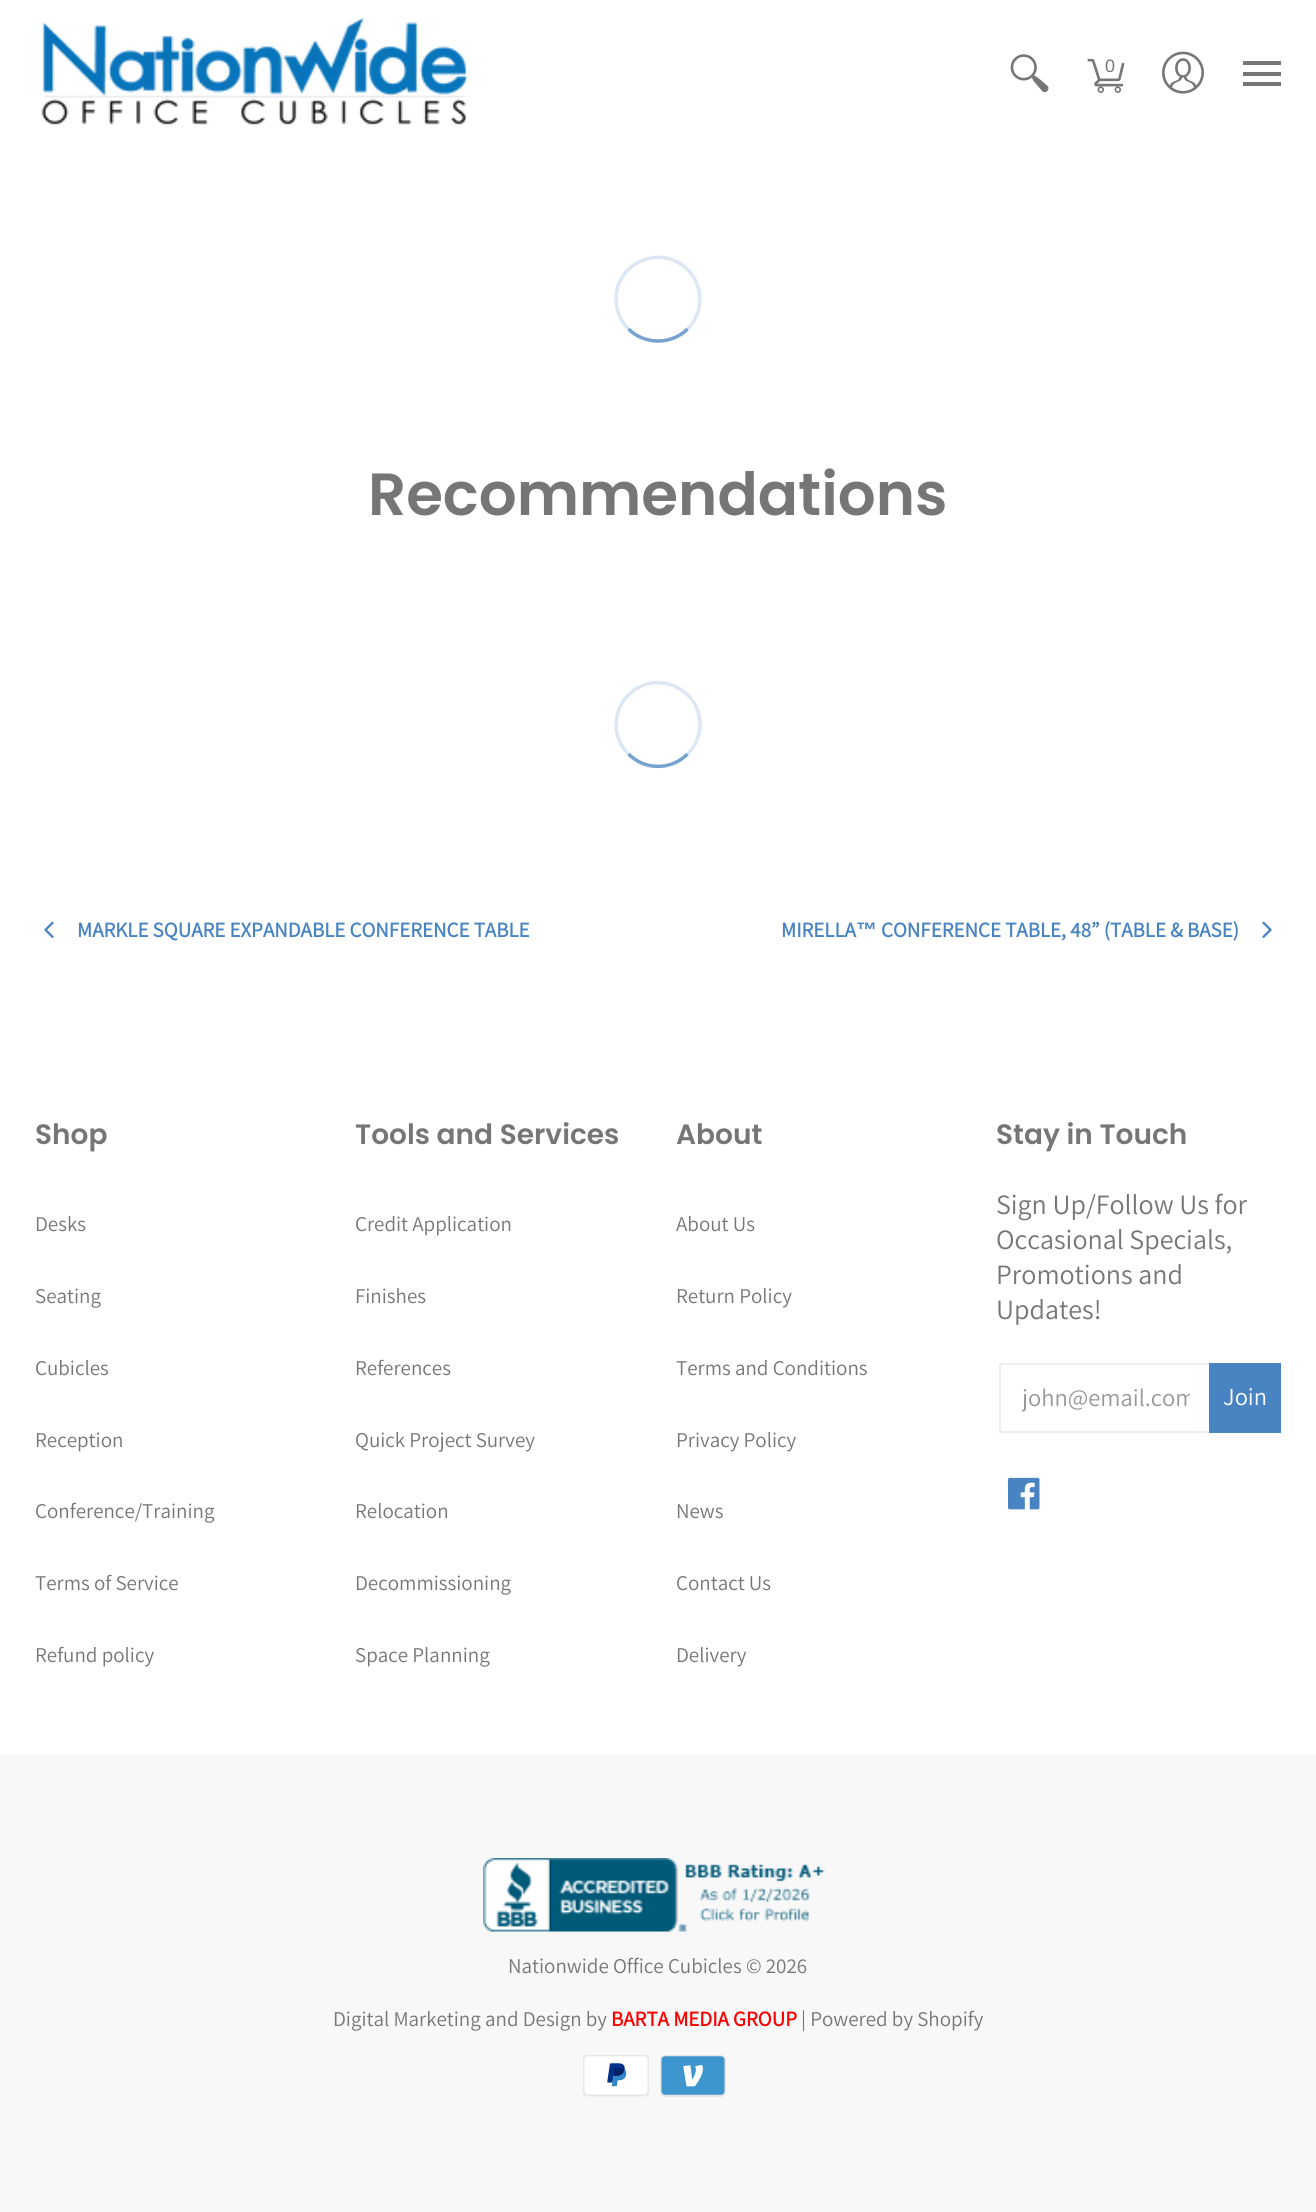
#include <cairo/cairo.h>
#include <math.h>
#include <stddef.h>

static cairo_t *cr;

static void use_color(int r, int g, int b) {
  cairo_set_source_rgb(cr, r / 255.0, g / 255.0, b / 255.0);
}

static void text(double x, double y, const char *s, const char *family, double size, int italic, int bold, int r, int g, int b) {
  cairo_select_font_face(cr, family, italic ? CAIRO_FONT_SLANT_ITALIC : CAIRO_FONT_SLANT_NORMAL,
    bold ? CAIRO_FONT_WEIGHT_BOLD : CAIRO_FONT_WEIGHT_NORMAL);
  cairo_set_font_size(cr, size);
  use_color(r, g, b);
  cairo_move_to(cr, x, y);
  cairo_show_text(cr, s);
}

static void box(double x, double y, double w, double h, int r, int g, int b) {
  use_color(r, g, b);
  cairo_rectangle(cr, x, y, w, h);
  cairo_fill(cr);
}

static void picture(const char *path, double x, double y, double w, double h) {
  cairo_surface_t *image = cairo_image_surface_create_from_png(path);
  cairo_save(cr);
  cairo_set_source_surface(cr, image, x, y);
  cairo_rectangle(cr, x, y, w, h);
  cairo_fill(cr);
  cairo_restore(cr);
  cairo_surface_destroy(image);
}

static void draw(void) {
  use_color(255, 255, 255);
  cairo_paint(cr);
  picture("img_01.png", 41, 17, 427, 108);
  picture("img_02.png", 1010, 54, 39, 39);
  picture("img_03.png", 1087, 58, 38, 35);
  picture("img_04.png", 1162, 51, 42, 43);
  box(1243, 61, 38, 4, 118, 118, 118);
  box(1243, 82, 38, 4, 118, 118, 118);
  box(1243, 72, 38, 4, 118, 118, 118);
  cairo_new_path(cr);
  cairo_move_to(cr, 687.5, 329);
  cairo_curve_to(cr, 671.5, 345, 644.5, 345, 628.5, 329);
  use_color(119, 163, 209);
  cairo_set_line_width(cr, 3.5);
  cairo_stroke(cr);
  cairo_new_path(cr);
  cairo_move_to(cr, 628.5, 329);
  cairo_curve_to(cr, 620.5, 321, 616, 310.5, 616, 299);
  cairo_curve_to(cr, 616, 262, 661.5, 243.5, 687.5, 269.5);
  cairo_curve_to(cr, 693.5, 275.5, 697.5, 283, 699, 291);
  cairo_curve_to(cr, 702, 304.5, 697.5, 319, 687.5, 329);
  cairo_set_source_rgba(cr, 0.467, 0.639, 0.82, 0.25);
  cairo_stroke(cr);
  cairo_new_path(cr);
  cairo_move_to(cr, 687.5, 754);
  cairo_curve_to(cr, 671.5, 770.5, 644.5, 770.5, 628.5, 754);
  use_color(119, 163, 209);
  cairo_stroke(cr);
  cairo_new_path(cr);
  cairo_move_to(cr, 628.5, 754);
  cairo_curve_to(cr, 618.5, 744.5, 614, 730, 617, 716.5);
  cairo_curve_to(cr, 618.5, 708, 622.5, 700.5, 628.5, 695);
  cairo_curve_to(cr, 654.5, 668.5, 700, 687.5, 700, 724.5);
  cairo_curve_to(cr, 700, 735.5, 695.5, 746.5, 687.5, 754);
  cairo_set_source_rgba(cr, 0.467, 0.639, 0.82, 0.25);
  cairo_stroke(cr);
  picture("img_05.png", 44, 921, 10, 17);
  picture("img_06.png", 1262, 921, 10, 17);
  cairo_rectangle(cr, 1000, 1364, 212, 68);
  use_color(237, 238, 244);
  cairo_set_line_width(cr, 2);
  cairo_stroke(cr);
  box(1209, 1363, 72, 70, 73, 132, 194);
  picture("img_07.png", 1008, 1477, 32, 33);
  box(0, 1754, 1316, 458, 248, 248, 248);
  picture("img_08.png", 483, 1858, 342, 74);
  picture("img_09.png", 583, 2055, 66, 42);
  picture("img_10.png", 660, 2055, 66, 42);
  text(1105, 72, "0", "Liberation Sans", 18, 0, 0, 118, 118, 118);
  text(368, 515, "Recommendations", "Poppins SemiBold", 59.5, 0, 0, 118, 118, 118);
  text(77, 937, "MARKLE SQUARE EXPANDABLE CONFERENCE TABLE", "Assistant", 21, 0, 1, 73, 132, 194);
  text(781, 937, "MIRELLA", "Assistant", 21, 0, 1, 73, 132, 194);
  text(856, 937, "™", "Liberation Sans", 21, 0, 1, 73, 132, 194);
  text(881, 937, "CONFERENCE TABLE, 48” (TABLE & BASE)", "Assistant", 21, 0, 1, 73, 132, 194);
  text(35, 1144, "Shop", "Poppins SemiBold", 28, 0, 0, 118, 118, 118);
  text(35, 1231, "Desks", "Assistant", 21, 0, 0, 118, 118, 118);
  text(35, 1303, "Seating", "Assistant", 21, 0, 0, 118, 118, 118);
  text(35, 1375, "Cubicles", "Assistant", 21, 0, 0, 118, 118, 118);
  text(35, 1447, "Reception", "Assistant", 21, 0, 0, 118, 118, 118);
  text(35, 1518, "Conference/Training", "Assistant", 21, 0, 0, 118, 118, 118);
  text(35, 1590, "Terms of Service", "Assistant", 21, 0, 0, 118, 118, 118);
  text(35, 1662, "Refund policy", "Assistant", 21, 0, 0, 118, 118, 118);
  text(355, 1144, "Tools and Services", "Poppins SemiBold", 28, 0, 0, 118, 118, 118);
  text(355, 1231, "Credit Application", "Assistant", 21, 0, 0, 118, 118, 118);
  text(355, 1303, "Finishes", "Assistant", 21, 0, 0, 118, 118, 118);
  text(355, 1375, "References", "Assistant", 21, 0, 0, 118, 118, 118);
  text(355, 1447, "Quick Project Survey", "Assistant", 21, 0, 0, 118, 118, 118);
  text(355, 1518, "Relocation", "Assistant", 21, 0, 0, 118, 118, 118);
  text(355, 1590, "Decommissioning", "Assistant", 21, 0, 0, 118, 118, 118);
  text(355, 1662, "Space Planning", "Assistant", 21, 0, 0, 118, 118, 118);
  text(676, 1144, "About", "Poppins SemiBold", 28, 0, 0, 118, 118, 118);
  text(676, 1231, "About Us", "Assistant", 21, 0, 0, 118, 118, 118);
  text(676, 1303, "Return Policy", "Assistant", 21, 0, 0, 118, 118, 118);
  text(676, 1375, "Terms and Conditions", "Assistant", 21, 0, 0, 118, 118, 118);
  text(676, 1447, "Privacy Policy", "Assistant", 21, 0, 0, 118, 118, 118);
  text(676, 1518, "News", "Assistant", 21, 0, 0, 118, 118, 118);
  text(676, 1590, "Contact Us", "Assistant", 21, 0, 0, 118, 118, 118);
  text(676, 1662, "Delivery", "Assistant", 21, 0, 0, 118, 118, 118);
  text(996, 1144, "Stay in Touch", "Poppins SemiBold", 28, 0, 0, 118, 118, 118);
  text(996, 1214, "Sign Up/Follow Us for", "Assistant", 28, 0, 0, 118, 118, 118);
  text(996, 1249, "Occasional Specials,", "Assistant", 28, 0, 0, 118, 118, 118);
  text(996, 1284, "Promotions and", "Assistant", 28, 0, 0, 118, 118, 118);
  text(996, 1319, "Updates!", "Assistant", 28, 0, 0, 118, 118, 118);
  cairo_save(cr);
  cairo_rectangle(cr, 1022, 1383, 168, 31);
  cairo_clip(cr);
  text(1022, 1406, "john@email.com", "Assistant", 24.5, 0, 0, 152, 152, 152);
  cairo_restore(cr);
  text(1223, 1405, "Join", "Assistant", 24.5, 0, 0, 255, 255, 255);
  text(508, 1973, "Nationwide Office Cubicles © 2026", "Assistant", 21, 0, 0, 118, 118, 118);
  text(333, 2026, "Digital Marketing and Design by", "Assistant", 21, 0, 0, 118, 118, 118);
  text(611, 2026, "BARTA MEDIA GROUP", "Assistant", 21, 0, 1, 255, 0, 0);
  text(801, 2026, "| Powered by Shopify", "Assistant", 21, 0, 0, 118, 118, 118);
}

int main(void) {
  cairo_surface_t *surface = cairo_image_surface_create(CAIRO_FORMAT_RGB24, 1316, 2212);
  cr = cairo_create(surface);
  cairo_font_options_t *options = cairo_font_options_create();
  cairo_font_options_set_hint_metrics(options, CAIRO_HINT_METRICS_OFF);
  cairo_font_options_set_hint_style(options, CAIRO_HINT_STYLE_NONE);
  cairo_set_font_options(cr, options);
  cairo_set_miter_limit(cr, 4);
  draw();
  cairo_surface_write_to_png(surface, "out.png");
  cairo_font_options_destroy(options);
  cairo_destroy(cr);
  cairo_surface_destroy(surface);
  return 0;
}
